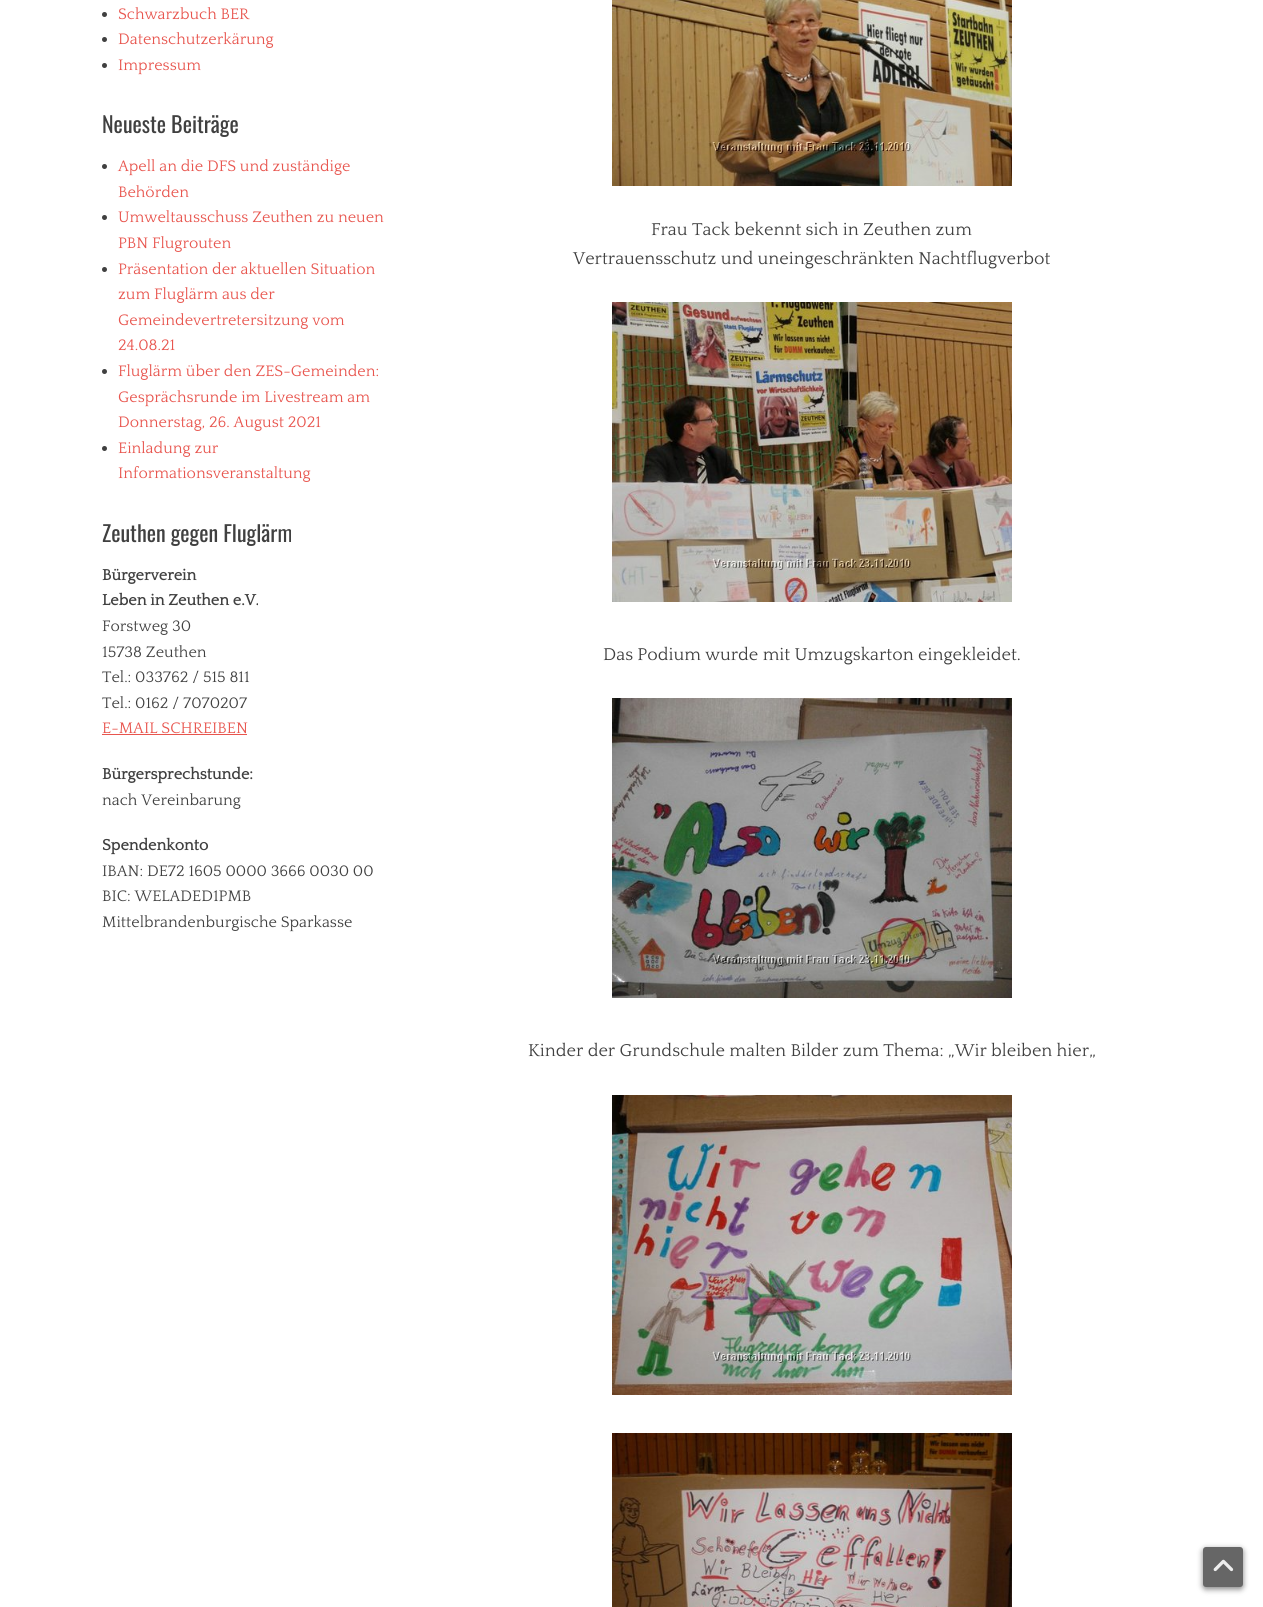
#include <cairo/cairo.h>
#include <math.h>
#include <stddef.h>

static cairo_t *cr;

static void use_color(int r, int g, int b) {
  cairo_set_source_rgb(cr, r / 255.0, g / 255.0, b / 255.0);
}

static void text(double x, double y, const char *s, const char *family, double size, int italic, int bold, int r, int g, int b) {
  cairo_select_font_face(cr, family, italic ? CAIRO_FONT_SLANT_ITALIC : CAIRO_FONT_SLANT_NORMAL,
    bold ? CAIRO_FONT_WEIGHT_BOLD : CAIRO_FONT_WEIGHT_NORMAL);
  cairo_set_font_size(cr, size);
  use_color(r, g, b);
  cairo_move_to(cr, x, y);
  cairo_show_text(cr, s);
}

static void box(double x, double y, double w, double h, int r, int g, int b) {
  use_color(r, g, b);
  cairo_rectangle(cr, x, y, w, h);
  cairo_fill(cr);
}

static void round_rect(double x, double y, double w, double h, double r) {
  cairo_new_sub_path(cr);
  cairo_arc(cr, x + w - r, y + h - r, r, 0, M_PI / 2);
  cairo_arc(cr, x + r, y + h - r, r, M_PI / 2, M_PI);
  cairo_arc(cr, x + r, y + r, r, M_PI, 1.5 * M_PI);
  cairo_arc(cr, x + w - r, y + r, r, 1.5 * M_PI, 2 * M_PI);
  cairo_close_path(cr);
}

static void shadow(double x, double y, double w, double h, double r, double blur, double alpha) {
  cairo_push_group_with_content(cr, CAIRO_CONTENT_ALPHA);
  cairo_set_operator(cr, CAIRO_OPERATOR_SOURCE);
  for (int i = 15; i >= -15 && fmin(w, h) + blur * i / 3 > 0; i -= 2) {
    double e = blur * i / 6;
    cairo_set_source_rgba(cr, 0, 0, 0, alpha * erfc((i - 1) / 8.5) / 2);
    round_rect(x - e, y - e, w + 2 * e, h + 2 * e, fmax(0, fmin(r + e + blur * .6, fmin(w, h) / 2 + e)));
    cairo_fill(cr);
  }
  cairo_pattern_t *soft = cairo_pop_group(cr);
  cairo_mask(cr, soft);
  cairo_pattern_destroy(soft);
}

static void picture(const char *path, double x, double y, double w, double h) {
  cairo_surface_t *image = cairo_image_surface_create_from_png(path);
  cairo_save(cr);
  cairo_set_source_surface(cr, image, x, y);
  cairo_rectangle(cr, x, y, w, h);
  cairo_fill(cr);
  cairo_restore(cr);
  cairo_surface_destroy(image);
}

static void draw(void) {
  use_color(255, 255, 255);
  cairo_paint(cr);
  use_color(64, 64, 64);
  cairo_arc(cr, 104.5, 14.5, 2.5, 0, 2 * M_PI);
  cairo_fill(cr);
  cairo_arc(cr, 104.5, 39.5, 2.5, 0, 2 * M_PI);
  cairo_fill(cr);
  cairo_arc(cr, 104.5, 65.5, 2.5, 0, 2 * M_PI);
  cairo_fill(cr);
  cairo_arc(cr, 104.5, 166.5, 2.5, 0, 2 * M_PI);
  cairo_fill(cr);
  cairo_arc(cr, 104.5, 217.5, 2.5, 0, 2 * M_PI);
  cairo_fill(cr);
  cairo_arc(cr, 104.5, 269.5, 2.5, 0, 2 * M_PI);
  cairo_fill(cr);
  cairo_arc(cr, 104.5, 371.5, 2.5, 0, 2 * M_PI);
  cairo_fill(cr);
  cairo_arc(cr, 104.5, 448.5, 2.5, 0, 2 * M_PI);
  cairo_fill(cr);
  box(102, 734, 145, 1, 232, 85, 78);
  picture("img_01.png", 612, 0, 400, 186);
  picture("img_02.png", 612, 302, 400, 300);
  picture("img_03.png", 612, 698, 400, 300);
  picture("img_04.png", 612, 1095, 400, 300);
  picture("img_05.png", 612, 1433, 400, 174);
  use_color(0, 0, 0);
  shadow(1203, 1549, 40, 40, 3, 3, 0.5);
  use_color(102, 102, 102);
  round_rect(1203, 1547, 40, 40, 3);
  cairo_fill(cr);
  picture("img_06.png", 1213, 1559, 21, 13);
  text(118, 19, "Schwarzbuch BER", "Quattrocento", 16, 0, 0, 232, 85, 78);
  text(118, 44, "Datenschutzerkärung", "Quattrocento", 16, 0, 0, 232, 85, 78);
  text(118, 70, "Impressum", "Quattrocento", 16, 0, 0, 232, 85, 78);
  text(102, 133, "Neueste Beiträge", "Oswald", 22, 0, 0, 64, 64, 64);
  text(118, 171, "Apell an die DFS und zuständige", "Quattrocento", 16, 0, 0, 232, 85, 78);
  text(118, 197, "Behörden", "Quattrocento", 16, 0, 0, 232, 85, 78);
  text(118, 222, "Umweltausschuss Zeuthen zu neuen", "Quattrocento", 16, 0, 0, 232, 85, 78);
  text(118, 248, "PBN Flugrouten", "Quattrocento", 16, 0, 0, 232, 85, 78);
  text(118, 274, "Präsentation der aktuellen Situation", "Quattrocento", 16, 0, 0, 232, 85, 78);
  text(118, 299, "zum Fluglärm aus der", "Quattrocento", 16, 0, 0, 232, 85, 78);
  text(118, 325, "Gemeindevertretersitzung vom", "Quattrocento", 16, 0, 0, 232, 85, 78);
  text(118, 350, "24.08.21", "Quattrocento", 16, 0, 0, 232, 85, 78);
  text(118, 376, "Fluglärm über den ZES-Gemeinden:", "Quattrocento", 16, 0, 0, 232, 85, 78);
  text(118, 402, "Gesprächsrunde im Livestream am", "Quattrocento", 16, 0, 0, 232, 85, 78);
  text(118, 427, "Donnerstag, 26. August 2021", "Quattrocento", 16, 0, 0, 232, 85, 78);
  text(118, 453, "Einladung zur", "Quattrocento", 16, 0, 0, 232, 85, 78);
  text(118, 478, "Informationsveranstaltung", "Quattrocento", 16, 0, 0, 232, 85, 78);
  text(102, 542, "Zeuthen gegen Fluglärm", "Oswald", 22, 0, 0, 64, 64, 64);
  text(102, 580, "Bürgerverein", "Quattrocento", 16, 0, 1, 64, 64, 64);
  text(102, 605, "Leben in Zeuthen e.V.", "Quattrocento", 16, 0, 1, 64, 64, 64);
  text(102, 631, "Forstweg 30", "Quattrocento", 16, 0, 0, 64, 64, 64);
  text(102, 657, "15738 Zeuthen", "Quattrocento", 16, 0, 0, 64, 64, 64);
  text(102, 682, "Tel.: 033762 / 515 811", "Quattrocento", 16, 0, 0, 64, 64, 64);
  text(102, 708, "Tel.: 0162 / 7070207", "Quattrocento", 16, 0, 0, 64, 64, 64);
  text(102, 733, "E-MAIL SCHREIBEN", "Quattrocento", 16, 0, 0, 232, 85, 78);
  text(102, 779, "Bürgersprechstunde:", "Quattrocento", 16, 0, 1, 64, 64, 64);
  text(102, 805, "nach Vereinbarung", "Quattrocento", 16, 0, 0, 64, 64, 64);
  text(102, 850, "Spendenkonto", "Quattrocento", 16, 0, 1, 64, 64, 64);
  text(102, 876, "IBAN: DE72 1605 0000 3666 0030 00", "Quattrocento", 16, 0, 0, 64, 64, 64);
  text(102, 901, "BIC: WELADED1PMB", "Quattrocento", 16, 0, 0, 64, 64, 64);
  text(102, 927, "Mittelbrandenburgische Sparkasse", "Quattrocento", 16, 0, 0, 64, 64, 64);
  text(651, 235, "Frau Tack bekennt sich in Zeuthen zum", "Quattrocento", 18, 0, 0, 64, 64, 64);
  text(573, 264, "Vertrauensschutz und uneingeschränkten Nachtflugverbot", "Quattrocento", 18, 0, 0, 64, 64, 64);
  text(603, 660, "Das Podium wurde mit Umzugskarton eingekleidet.", "Quattrocento", 18, 0, 0, 64, 64, 64);
  text(528, 1056, "Kinder der Grundschule malten Bilder zum Thema: „Wir bleiben hier„", "Quattrocento", 18, 0, 0, 64, 64, 64);
}

int main(void) {
  cairo_surface_t *surface = cairo_image_surface_create(CAIRO_FORMAT_RGB24, 1263, 1607);
  cr = cairo_create(surface);
  cairo_font_options_t *options = cairo_font_options_create();
  cairo_font_options_set_hint_metrics(options, CAIRO_HINT_METRICS_OFF);
  cairo_font_options_set_hint_style(options, CAIRO_HINT_STYLE_NONE);
  cairo_set_font_options(cr, options);
  cairo_set_miter_limit(cr, 4);
  draw();
  cairo_surface_write_to_png(surface, "out.png");
  cairo_font_options_destroy(options);
  cairo_destroy(cr);
  cairo_surface_destroy(surface);
  return 0;
}
